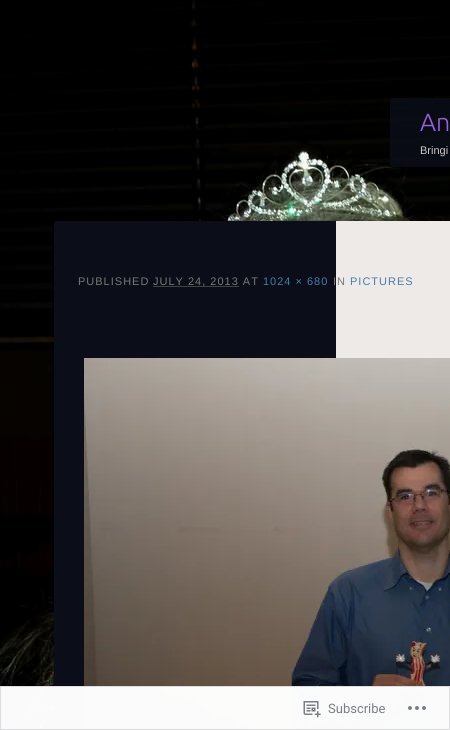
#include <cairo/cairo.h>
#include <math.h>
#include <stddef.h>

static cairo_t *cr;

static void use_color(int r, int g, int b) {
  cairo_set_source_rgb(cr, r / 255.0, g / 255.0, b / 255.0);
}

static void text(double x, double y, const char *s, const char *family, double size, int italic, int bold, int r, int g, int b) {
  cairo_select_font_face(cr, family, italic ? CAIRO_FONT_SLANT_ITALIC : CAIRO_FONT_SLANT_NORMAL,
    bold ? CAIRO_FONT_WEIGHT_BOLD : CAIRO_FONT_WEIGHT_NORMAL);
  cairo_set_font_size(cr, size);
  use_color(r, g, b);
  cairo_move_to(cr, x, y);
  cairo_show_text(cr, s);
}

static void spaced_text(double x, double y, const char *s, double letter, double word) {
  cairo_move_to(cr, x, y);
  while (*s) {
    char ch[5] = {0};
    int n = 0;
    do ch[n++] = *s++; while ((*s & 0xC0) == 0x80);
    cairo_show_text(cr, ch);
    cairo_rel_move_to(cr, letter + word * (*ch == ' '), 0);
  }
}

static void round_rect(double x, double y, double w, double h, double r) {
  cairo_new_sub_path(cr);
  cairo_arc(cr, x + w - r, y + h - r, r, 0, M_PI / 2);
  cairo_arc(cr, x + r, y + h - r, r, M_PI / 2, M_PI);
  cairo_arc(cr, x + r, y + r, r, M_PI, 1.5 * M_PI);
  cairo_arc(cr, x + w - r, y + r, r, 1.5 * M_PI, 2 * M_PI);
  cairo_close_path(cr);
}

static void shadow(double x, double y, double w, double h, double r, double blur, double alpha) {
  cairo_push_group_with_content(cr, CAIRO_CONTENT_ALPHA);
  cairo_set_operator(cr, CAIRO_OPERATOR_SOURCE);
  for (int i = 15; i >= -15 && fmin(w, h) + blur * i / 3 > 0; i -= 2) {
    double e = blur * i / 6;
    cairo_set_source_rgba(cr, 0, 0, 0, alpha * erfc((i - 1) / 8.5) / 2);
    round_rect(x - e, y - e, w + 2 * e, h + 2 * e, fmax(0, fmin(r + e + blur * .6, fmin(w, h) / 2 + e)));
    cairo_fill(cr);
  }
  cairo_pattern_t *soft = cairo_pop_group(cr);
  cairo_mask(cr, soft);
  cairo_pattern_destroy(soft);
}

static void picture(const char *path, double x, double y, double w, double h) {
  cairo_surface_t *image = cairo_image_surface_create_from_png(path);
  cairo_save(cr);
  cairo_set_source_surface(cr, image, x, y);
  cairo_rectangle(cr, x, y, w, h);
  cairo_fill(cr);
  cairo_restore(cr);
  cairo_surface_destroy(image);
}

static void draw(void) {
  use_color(255, 255, 255);
  cairo_paint(cr);
  picture("img_01.png", 0, 0, 450, 730);
  cairo_set_source_rgba(cr, 0.043, 0.055, 0.094, 0.8);
  round_rect(390, 98, 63, 69, 3);
  cairo_fill(cr);
  use_color(0, 0, 0);
  shadow(54, 221, 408, 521, 3, 3, 0.4);
  picture("img_02.png", 54, 221, 396, 509);
  cairo_new_path(cr);
  cairo_move_to(cr, 153.5, 286.5);
  cairo_line_to(cr, 239, 286.5);
  use_color(119, 119, 119);
  cairo_set_line_width(cr, 1);
  cairo_set_dash(cr, (double[]){1, 1}, 2, 0);
  cairo_stroke(cr);
  picture("img_03.png", 84, 358, 366, 372);
  cairo_set_source_rgba(cr, 1, 1, 1, 0.98);
  cairo_rectangle(cr, 0, 686, 450, 44);
  cairo_fill(cr);
  cairo_rectangle(cr, 0.5, 686.5, 449, 43);
  cairo_set_source_rgba(cr, 0.863, 0.863, 0.871, 0.98);
  cairo_set_dash(cr, NULL, 0, 0);
  cairo_stroke(cr);
  picture("img_04.png", 303, 701, 18, 17);
  picture("img_05.png", 408, 706, 18, 4);
  text(420, 131, "An", "Ubuntu Light", 25, 0, 0, 154, 96, 220);
  text(420, 154, "Bringi", "Liberation Sans", 11, 0, 0, 204, 204, 204);
  use_color(119, 119, 119);
  spaced_text(78, 285, "PUBLISHED", 1, 0);
  spaced_text(153, 285, "JULY 24, 2013 AT", 1, 0);
  use_color(73, 124, 167);
  spaced_text(263, 285, "1024 × 680", 1, 0);
  use_color(119, 119, 119);
  spaced_text(333, 285, "IN", 1, 0);
  use_color(73, 124, 167);
  spaced_text(350, 285, "PICTURES", 1, 0);
  text(328, 713, "Subscribe", "Roboto", 13, 0, 0, 123, 127, 132);
}

int main(void) {
  cairo_surface_t *surface = cairo_image_surface_create(CAIRO_FORMAT_RGB24, 450, 730);
  cr = cairo_create(surface);
  cairo_font_options_t *options = cairo_font_options_create();
  cairo_font_options_set_hint_metrics(options, CAIRO_HINT_METRICS_OFF);
  cairo_font_options_set_hint_style(options, CAIRO_HINT_STYLE_NONE);
  cairo_set_font_options(cr, options);
  cairo_set_miter_limit(cr, 4);
  draw();
  cairo_surface_write_to_png(surface, "out.png");
  cairo_font_options_destroy(options);
  cairo_destroy(cr);
  cairo_surface_destroy(surface);
  return 0;
}
